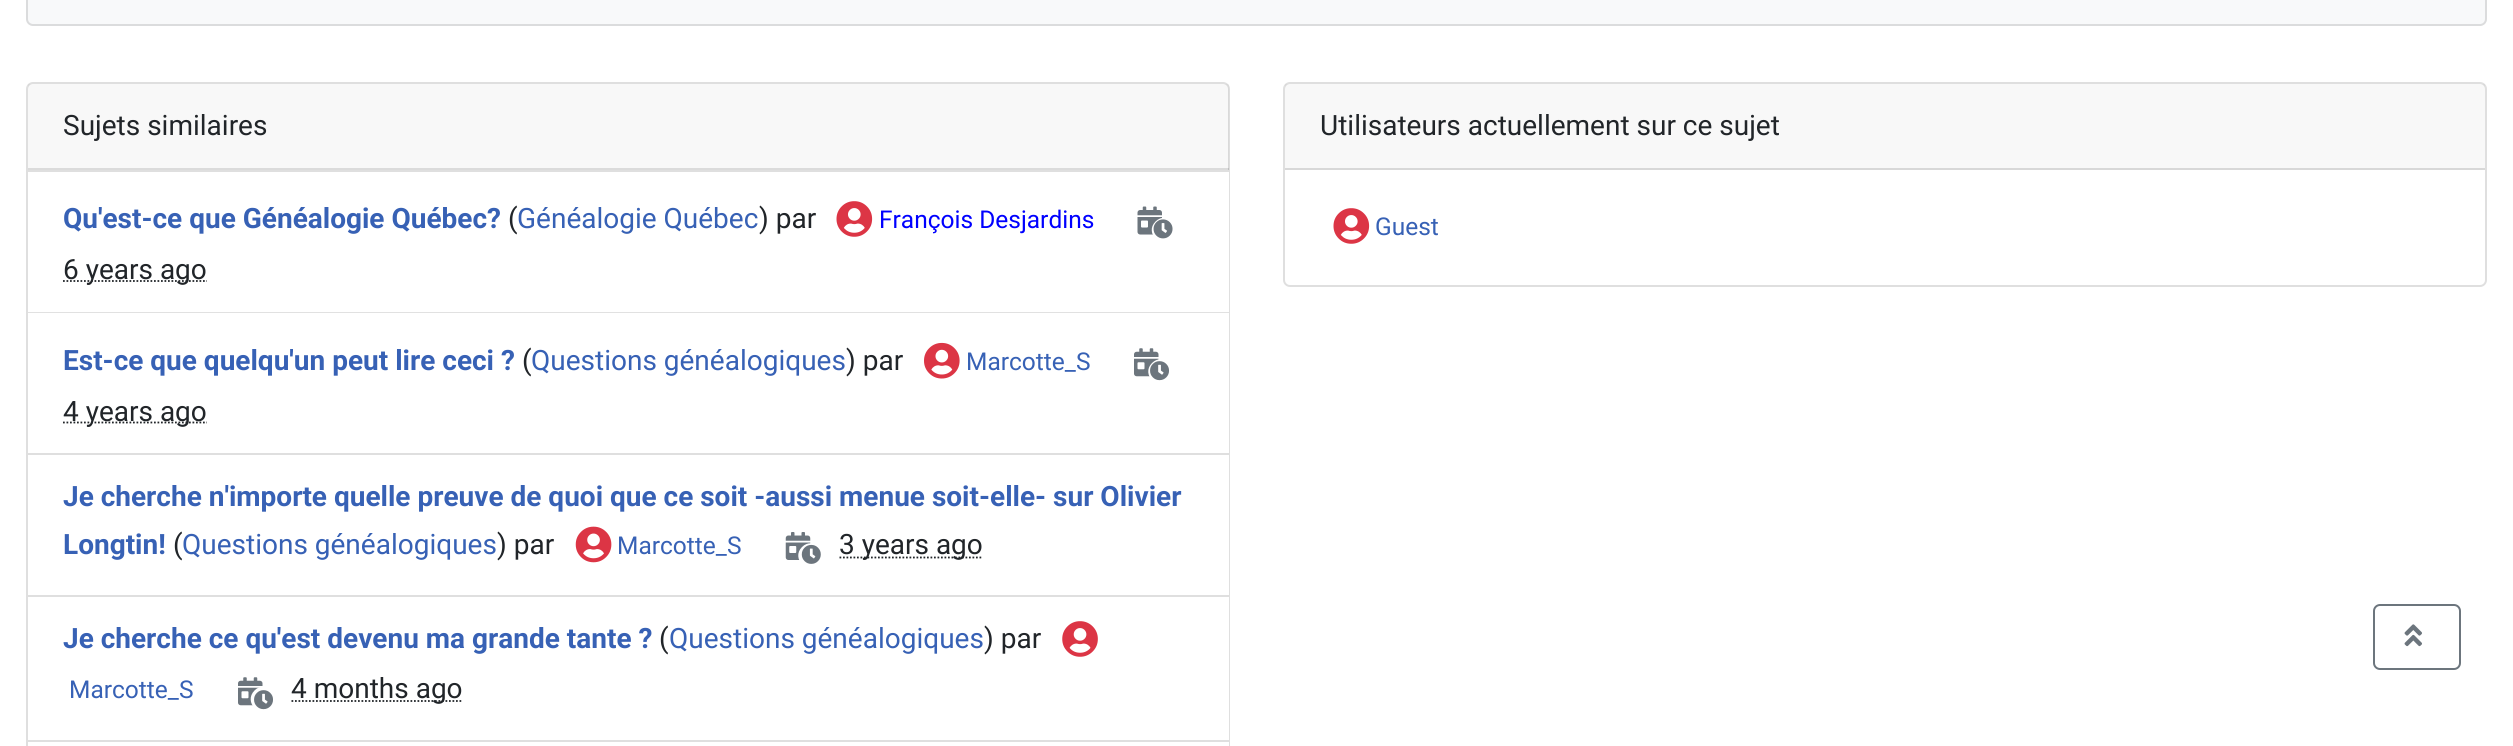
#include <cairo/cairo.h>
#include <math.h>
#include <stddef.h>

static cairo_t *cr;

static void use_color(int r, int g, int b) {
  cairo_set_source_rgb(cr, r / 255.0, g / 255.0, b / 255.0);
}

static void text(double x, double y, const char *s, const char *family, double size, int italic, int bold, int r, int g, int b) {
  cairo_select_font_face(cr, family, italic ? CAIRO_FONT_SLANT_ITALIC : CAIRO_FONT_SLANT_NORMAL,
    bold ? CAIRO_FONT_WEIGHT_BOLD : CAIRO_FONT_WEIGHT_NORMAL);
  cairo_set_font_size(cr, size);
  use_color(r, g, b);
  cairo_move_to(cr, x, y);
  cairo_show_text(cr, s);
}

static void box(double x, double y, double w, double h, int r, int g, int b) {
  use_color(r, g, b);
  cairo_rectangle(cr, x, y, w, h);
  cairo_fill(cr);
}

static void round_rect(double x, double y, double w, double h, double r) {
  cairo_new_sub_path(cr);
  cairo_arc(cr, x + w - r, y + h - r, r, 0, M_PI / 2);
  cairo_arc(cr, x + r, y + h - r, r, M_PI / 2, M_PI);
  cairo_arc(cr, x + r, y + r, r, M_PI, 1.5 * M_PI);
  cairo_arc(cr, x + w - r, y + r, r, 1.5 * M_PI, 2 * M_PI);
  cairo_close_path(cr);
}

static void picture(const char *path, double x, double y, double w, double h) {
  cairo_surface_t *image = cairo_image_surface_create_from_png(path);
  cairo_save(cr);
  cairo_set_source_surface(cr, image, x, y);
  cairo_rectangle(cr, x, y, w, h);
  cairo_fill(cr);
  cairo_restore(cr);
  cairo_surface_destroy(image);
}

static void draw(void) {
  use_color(255, 255, 255);
  cairo_paint(cr);
  use_color(248, 249, 250);
  round_rect(26, -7, 2461, 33, 7);
  cairo_fill(cr);
  round_rect(27, -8, 2459, 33, 6);
  cairo_set_source_rgba(cr, 0, 0, 0, 0.12);
  cairo_stroke(cr);
  round_rect(27, 83, 1202, 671, 6);
  use_color(223, 223, 223);
  cairo_stroke(cr);
  cairo_set_source_rgba(cr, 0, 0, 0, 0.03);
  cairo_rectangle(cr, 28, 84, 1201, 86);
  cairo_fill(cr);
  cairo_set_source_rgba(cr, 0, 0, 0, 0.12);
  cairo_rectangle(cr, 28, 168, 1201, 2);
  cairo_fill(cr);
  box(1228, 172, 1, 281, 255, 255, 255);
  box(28, 170, 1201, 2, 223, 223, 223);
  cairo_set_source_rgba(cr, 0, 0, 0, 0.12);
  cairo_rectangle(cr, 28, 312, 1201, 1);
  cairo_fill(cr);
  picture("img_01.png", 836, 201, 37, 36);
  picture("img_02.png", 1137, 206, 25, 29);
  use_color(255, 255, 255);
  cairo_new_path(cr);
  cairo_move_to(cr, 1155.5, 221.5);
  cairo_curve_to(cr, 1167, 210, 1184.5, 227.5, 1173, 239);
  cairo_curve_to(cr, 1161.5, 250.5, 1144, 233, 1155.5, 221.5);
  cairo_close_path(cr);
  cairo_fill(cr);
  picture("img_03.png", 1153, 219, 20, 20);
  cairo_new_path(cr);
  cairo_move_to(cr, 63, 281);
  cairo_line_to(cr, 207, 281);
  use_color(33, 37, 41);
  cairo_set_line_width(cr, 1.8);
  cairo_set_dash(cr, (double[]){1.75, 1.75}, 2, 0);
  cairo_stroke(cr);
  box(28, 453, 1201, 2, 223, 223, 223);
  picture("img_04.png", 924, 342, 36, 37);
  picture("img_05.png", 1134, 348, 25, 29);
  use_color(255, 255, 255);
  cairo_new_path(cr);
  cairo_move_to(cr, 1152, 363);
  cairo_curve_to(cr, 1163.5, 351.5, 1181, 369, 1169.5, 380.5);
  cairo_curve_to(cr, 1158, 392, 1140.5, 374.5, 1152, 363);
  cairo_close_path(cr);
  cairo_fill(cr);
  picture("img_06.png", 1150, 361, 19, 20);
  cairo_new_path(cr);
  cairo_move_to(cr, 63, 422.5);
  cairo_line_to(cr, 207, 422.5);
  use_color(33, 37, 41);
  cairo_stroke(cr);
  box(1228, 455, 1, 140, 255, 255, 255);
  box(28, 595, 1201, 2, 223, 223, 223);
  picture("img_07.png", 575, 526, 37, 37);
  picture("img_08.png", 785, 532, 26, 28);
  use_color(255, 255, 255);
  cairo_new_path(cr);
  cairo_move_to(cr, 802, 547);
  cairo_curve_to(cr, 813.5, 535.5, 831, 553, 819.5, 564.5);
  cairo_curve_to(cr, 808, 576, 790.5, 558.5, 802, 547);
  cairo_close_path(cr);
  cairo_fill(cr);
  picture("img_09.png", 801, 544, 20, 20);
  cairo_new_path(cr);
  cairo_move_to(cr, 839.5, 557.5);
  cairo_line_to(cr, 983, 557.5);
  use_color(33, 37, 41);
  cairo_stroke(cr);
  box(1228, 597, 1, 143, 255, 255, 255);
  box(28, 740, 1201, 2, 223, 223, 223);
  picture("img_10.png", 1062, 621, 36, 36);
  picture("img_05.png", 238, 677, 25, 29);
  use_color(255, 255, 255);
  cairo_new_path(cr);
  cairo_move_to(cr, 254.5, 690.5);
  cairo_curve_to(cr, 265.5, 679, 283, 696.5, 271.5, 708);
  cairo_curve_to(cr, 260, 719.5, 243, 702, 254.5, 690.5);
  cairo_close_path(cr);
  cairo_fill(cr);
  picture("img_11.png", 254, 690, 19, 20);
  cairo_new_path(cr);
  cairo_move_to(cr, 291.5, 701);
  cairo_line_to(cr, 463, 701);
  use_color(33, 37, 41);
  cairo_stroke(cr);
  box(1228, 742, 1, 4, 255, 255, 255);
  round_rect(1284, 83, 1202, 203, 6);
  use_color(223, 223, 223);
  cairo_set_line_width(cr, 2);
  cairo_set_dash(cr, NULL, 0, 0);
  cairo_stroke(cr);
  cairo_set_source_rgba(cr, 0, 0, 0, 0.03);
  cairo_rectangle(cr, 1285, 84, 1200, 84);
  cairo_fill(cr);
  box(1285, 168, 1200, 2, 216, 216, 216);
  picture("img_01.png", 1333, 208, 37, 36);
  round_rect(2374, 605, 86, 64, 6);
  use_color(108, 117, 125);
  cairo_stroke(cr);
  picture("img_12.png", 2404, 624, 18, 23);
  text(63, 135, "Sujets similaires", "Roboto", 28, 0, 0, 33, 37, 41);
  text(63, 228, "Qu'est-ce que Généalogie Québec?", "Roboto", 28, 0, 1, 55, 97, 181);
  text(508, 228, "(", "Roboto", 28, 0, 0, 33, 37, 41);
  text(517, 228, "Généalogie Québec", "Roboto", 28, 0, 0, 55, 97, 181);
  text(759, 228, ") par", "Roboto", 28, 0, 0, 33, 37, 41);
  text(879, 228, "François Desjardins", "Roboto", 24.5, 0, 0, 0, 0, 255);
  text(63, 279, "6 years ago", "Roboto", 28, 0, 0, 33, 37, 41);
  text(63, 370, "Est-ce que quelqu'un peut lire ceci ?", "Roboto", 28, 0, 1, 55, 97, 181);
  text(522, 370, "(", "Roboto", 28, 0, 0, 33, 37, 41);
  text(531, 370, "Questions généalogiques", "Roboto", 28, 0, 0, 55, 97, 181);
  text(846, 370, ") par", "Roboto", 28, 0, 0, 33, 37, 41);
  text(966, 370, "Marcotte_S", "Roboto", 24.5, 0, 0, 55, 97, 181);
  text(63, 421, "4 years ago", "Roboto", 28, 0, 0, 33, 37, 41);
  text(63, 506, "Je cherche n'importe quelle preuve de quoi que ce soit -aussi menue soit-elle- sur Olivier", "Roboto", 28, 0, 1, 55, 97, 181);
  text(63, 554, "Longtin!", "Roboto", 28, 0, 1, 55, 97, 181);
  text(173, 554, "(", "Roboto", 28, 0, 0, 33, 37, 41);
  text(182, 554, "Questions généalogiques", "Roboto", 28, 0, 0, 55, 97, 181);
  text(497, 554, ") par", "Roboto", 28, 0, 0, 33, 37, 41);
  text(617, 554, "Marcotte_S", "Roboto", 24.5, 0, 0, 55, 97, 181);
  text(839, 554, "3 years ago", "Roboto", 28, 0, 0, 33, 37, 41);
  text(63, 648, "Je cherche ce qu'est devenu ma grande tante ?", "Roboto", 28, 0, 1, 55, 97, 181);
  text(659, 648, "(", "Roboto", 28, 0, 0, 33, 37, 41);
  text(669, 648, "Questions généalogiques", "Roboto", 28, 0, 0, 55, 97, 181);
  text(984, 648, ") par", "Roboto", 28, 0, 0, 33, 37, 41);
  text(69, 698, "Marcotte_S", "Roboto", 24.5, 0, 0, 55, 97, 181);
  text(291, 698, "4 months ago", "Roboto", 28, 0, 0, 33, 37, 41);
  text(1320, 135, "Utilisateurs actuellement sur ce sujet", "Roboto", 28, 0, 0, 33, 37, 41);
  text(1375, 235, "Guest", "Roboto", 24.5, 0, 0, 55, 97, 181);
}

int main(void) {
  cairo_surface_t *surface = cairo_image_surface_create(CAIRO_FORMAT_RGB24, 2513, 746);
  cr = cairo_create(surface);
  cairo_font_options_t *options = cairo_font_options_create();
  cairo_font_options_set_hint_metrics(options, CAIRO_HINT_METRICS_OFF);
  cairo_font_options_set_hint_style(options, CAIRO_HINT_STYLE_NONE);
  cairo_set_font_options(cr, options);
  cairo_set_miter_limit(cr, 4);
  draw();
  cairo_surface_write_to_png(surface, "out.png");
  cairo_font_options_destroy(options);
  cairo_destroy(cr);
  cairo_surface_destroy(surface);
  return 0;
}
